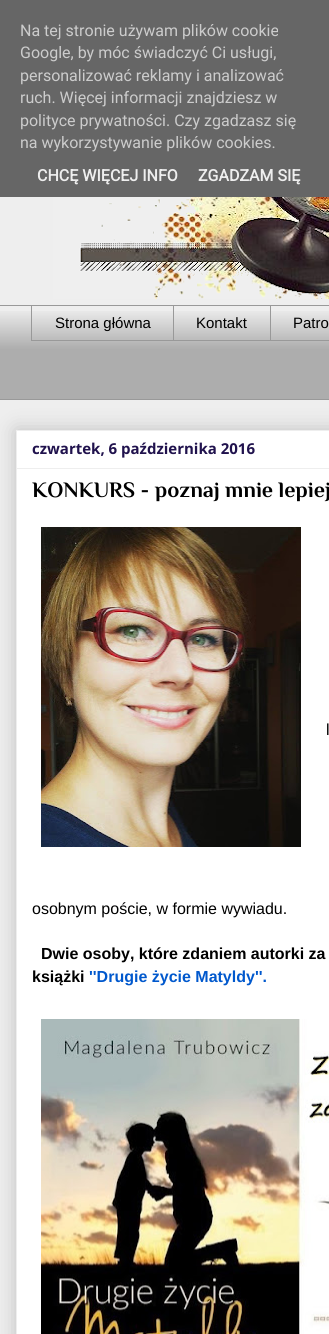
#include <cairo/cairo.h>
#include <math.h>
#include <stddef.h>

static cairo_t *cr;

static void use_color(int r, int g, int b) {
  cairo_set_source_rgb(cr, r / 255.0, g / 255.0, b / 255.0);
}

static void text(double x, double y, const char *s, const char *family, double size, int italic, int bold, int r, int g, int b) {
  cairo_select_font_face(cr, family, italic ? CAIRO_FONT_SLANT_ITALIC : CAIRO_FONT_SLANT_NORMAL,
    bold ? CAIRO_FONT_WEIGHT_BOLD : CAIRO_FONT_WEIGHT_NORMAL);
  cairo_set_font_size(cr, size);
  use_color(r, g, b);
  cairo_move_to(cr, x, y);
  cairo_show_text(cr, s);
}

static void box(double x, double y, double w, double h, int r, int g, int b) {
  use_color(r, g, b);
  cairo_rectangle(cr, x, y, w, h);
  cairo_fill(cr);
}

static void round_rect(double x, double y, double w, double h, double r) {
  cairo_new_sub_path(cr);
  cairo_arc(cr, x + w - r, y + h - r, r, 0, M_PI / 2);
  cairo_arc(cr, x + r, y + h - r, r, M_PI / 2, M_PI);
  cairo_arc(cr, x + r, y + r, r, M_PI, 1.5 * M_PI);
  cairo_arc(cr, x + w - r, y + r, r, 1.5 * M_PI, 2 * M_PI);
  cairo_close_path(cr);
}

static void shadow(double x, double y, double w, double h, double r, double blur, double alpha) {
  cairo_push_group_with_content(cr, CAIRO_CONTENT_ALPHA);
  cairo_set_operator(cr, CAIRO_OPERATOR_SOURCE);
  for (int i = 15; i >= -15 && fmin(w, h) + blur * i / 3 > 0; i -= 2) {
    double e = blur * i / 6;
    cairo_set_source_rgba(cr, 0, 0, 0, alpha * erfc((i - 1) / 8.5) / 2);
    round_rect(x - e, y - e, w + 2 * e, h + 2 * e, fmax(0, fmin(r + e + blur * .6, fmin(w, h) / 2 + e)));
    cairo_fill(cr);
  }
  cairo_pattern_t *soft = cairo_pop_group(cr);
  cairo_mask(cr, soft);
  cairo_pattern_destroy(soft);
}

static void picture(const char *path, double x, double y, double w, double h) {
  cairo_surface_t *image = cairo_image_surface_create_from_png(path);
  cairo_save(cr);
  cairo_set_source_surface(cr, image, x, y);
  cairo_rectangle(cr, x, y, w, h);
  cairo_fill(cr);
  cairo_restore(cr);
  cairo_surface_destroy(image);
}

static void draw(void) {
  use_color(238, 238, 238);
  cairo_paint(cr);
  box(0, 0, 329, 197, 102, 102, 102);
  picture("img_01.png", 53, 197, 276, 102);
  picture("img_02.png", 0, 311, 329, 88);
  box(0, 305, 329, 1, 153, 153, 153);
  box(31, 340, 298, 1, 153, 153, 153);
  box(31, 305, 1, 36, 153, 153, 153);
  box(173, 305, 1, 36, 153, 153, 153);
  box(270, 305, 1, 36, 153, 153, 153);
  box(0, 399, 329, 1, 153, 153, 153);
  use_color(0, 0, 0);
  shadow(16, 430, 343, 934, 0, 10, 0.2);
  use_color(255, 255, 255);
  cairo_rectangle(cr, 16.5, 430.5, 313, 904);
  cairo_fill_preserve(cr);
  use_color(238, 238, 238);
  cairo_set_line_width(cr, 1);
  cairo_stroke(cr);
  box(17, 468, 312, 1, 238, 238, 238);
  picture("img_03.png", 41, 527, 260, 320);
  picture("img_04.png", 41, 1019, 288, 315);
  text(20, 36, "Na tej stronie używam plików cookie", "Roboto", 16, 0, 0, 204, 204, 204);
  text(20, 58, "Google, by móc świadczyć Ci usługi,", "Roboto", 16, 0, 0, 204, 204, 204);
  text(20, 81, "personalizować reklamy i analizować", "Roboto", 16, 0, 0, 204, 204, 204);
  text(20, 103, "ruch. Więcej informacji znajdziesz w", "Roboto", 16, 0, 0, 204, 204, 204);
  text(20, 126, "polityce prywatności. Czy zgadzasz się", "Roboto", 16, 0, 0, 204, 204, 204);
  text(20, 148, "na wykorzystywanie plików cookies.", "Roboto", 16, 0, 0, 204, 204, 204);
  text(37, 181, "CHCĘ WIĘCEJ INFO", "Roboto", 16, 0, 1, 238, 238, 238);
  text(198, 181, "ZGADZAM SIĘ", "Roboto", 16, 0, 1, 238, 238, 238);
  text(55, 328, "Strona główna", "Liberation Sans", 15, 0, 0, 0, 0, 0);
  text(196, 328, "Kontakt", "Liberation Sans", 15, 0, 0, 0, 0, 0);
  text(293, 328, "Patro", "Liberation Sans", 15, 0, 0, 0, 0, 0);
  text(32, 454, "czwartek, 6 października 2016", "Open Sans", 15, 0, 1, 32, 18, 77);
  text(32, 497, "KONKURS - poznaj mnie lepiej", "Philosopher", 22, 0, 1, 0, 0, 0);
  text(326, 735, "l", "Liberation Sans", 16, 0, 0, 0, 0, 0);
  text(32, 914, "osobnym poście, w formie wywiadu.", "Liberation Sans", 16, 0, 0, 0, 0, 0);
  text(41, 959, "Dwie osoby, które zdaniem autorki za", "Liberation Sans", 16, 0, 1, 0, 0, 0);
  text(32, 982, "książki", "Liberation Sans", 16, 0, 1, 0, 0, 0);
  text(89, 982, "''Drugie życie Matyldy''.", "Liberation Sans", 16, 0, 1, 0, 88, 205);
}

int main(void) {
  cairo_surface_t *surface = cairo_image_surface_create(CAIRO_FORMAT_RGB24, 329, 1334);
  cr = cairo_create(surface);
  cairo_font_options_t *options = cairo_font_options_create();
  cairo_font_options_set_hint_metrics(options, CAIRO_HINT_METRICS_OFF);
  cairo_font_options_set_hint_style(options, CAIRO_HINT_STYLE_NONE);
  cairo_set_font_options(cr, options);
  cairo_set_miter_limit(cr, 4);
  draw();
  cairo_surface_write_to_png(surface, "out.png");
  cairo_font_options_destroy(options);
  cairo_destroy(cr);
  cairo_surface_destroy(surface);
  return 0;
}
